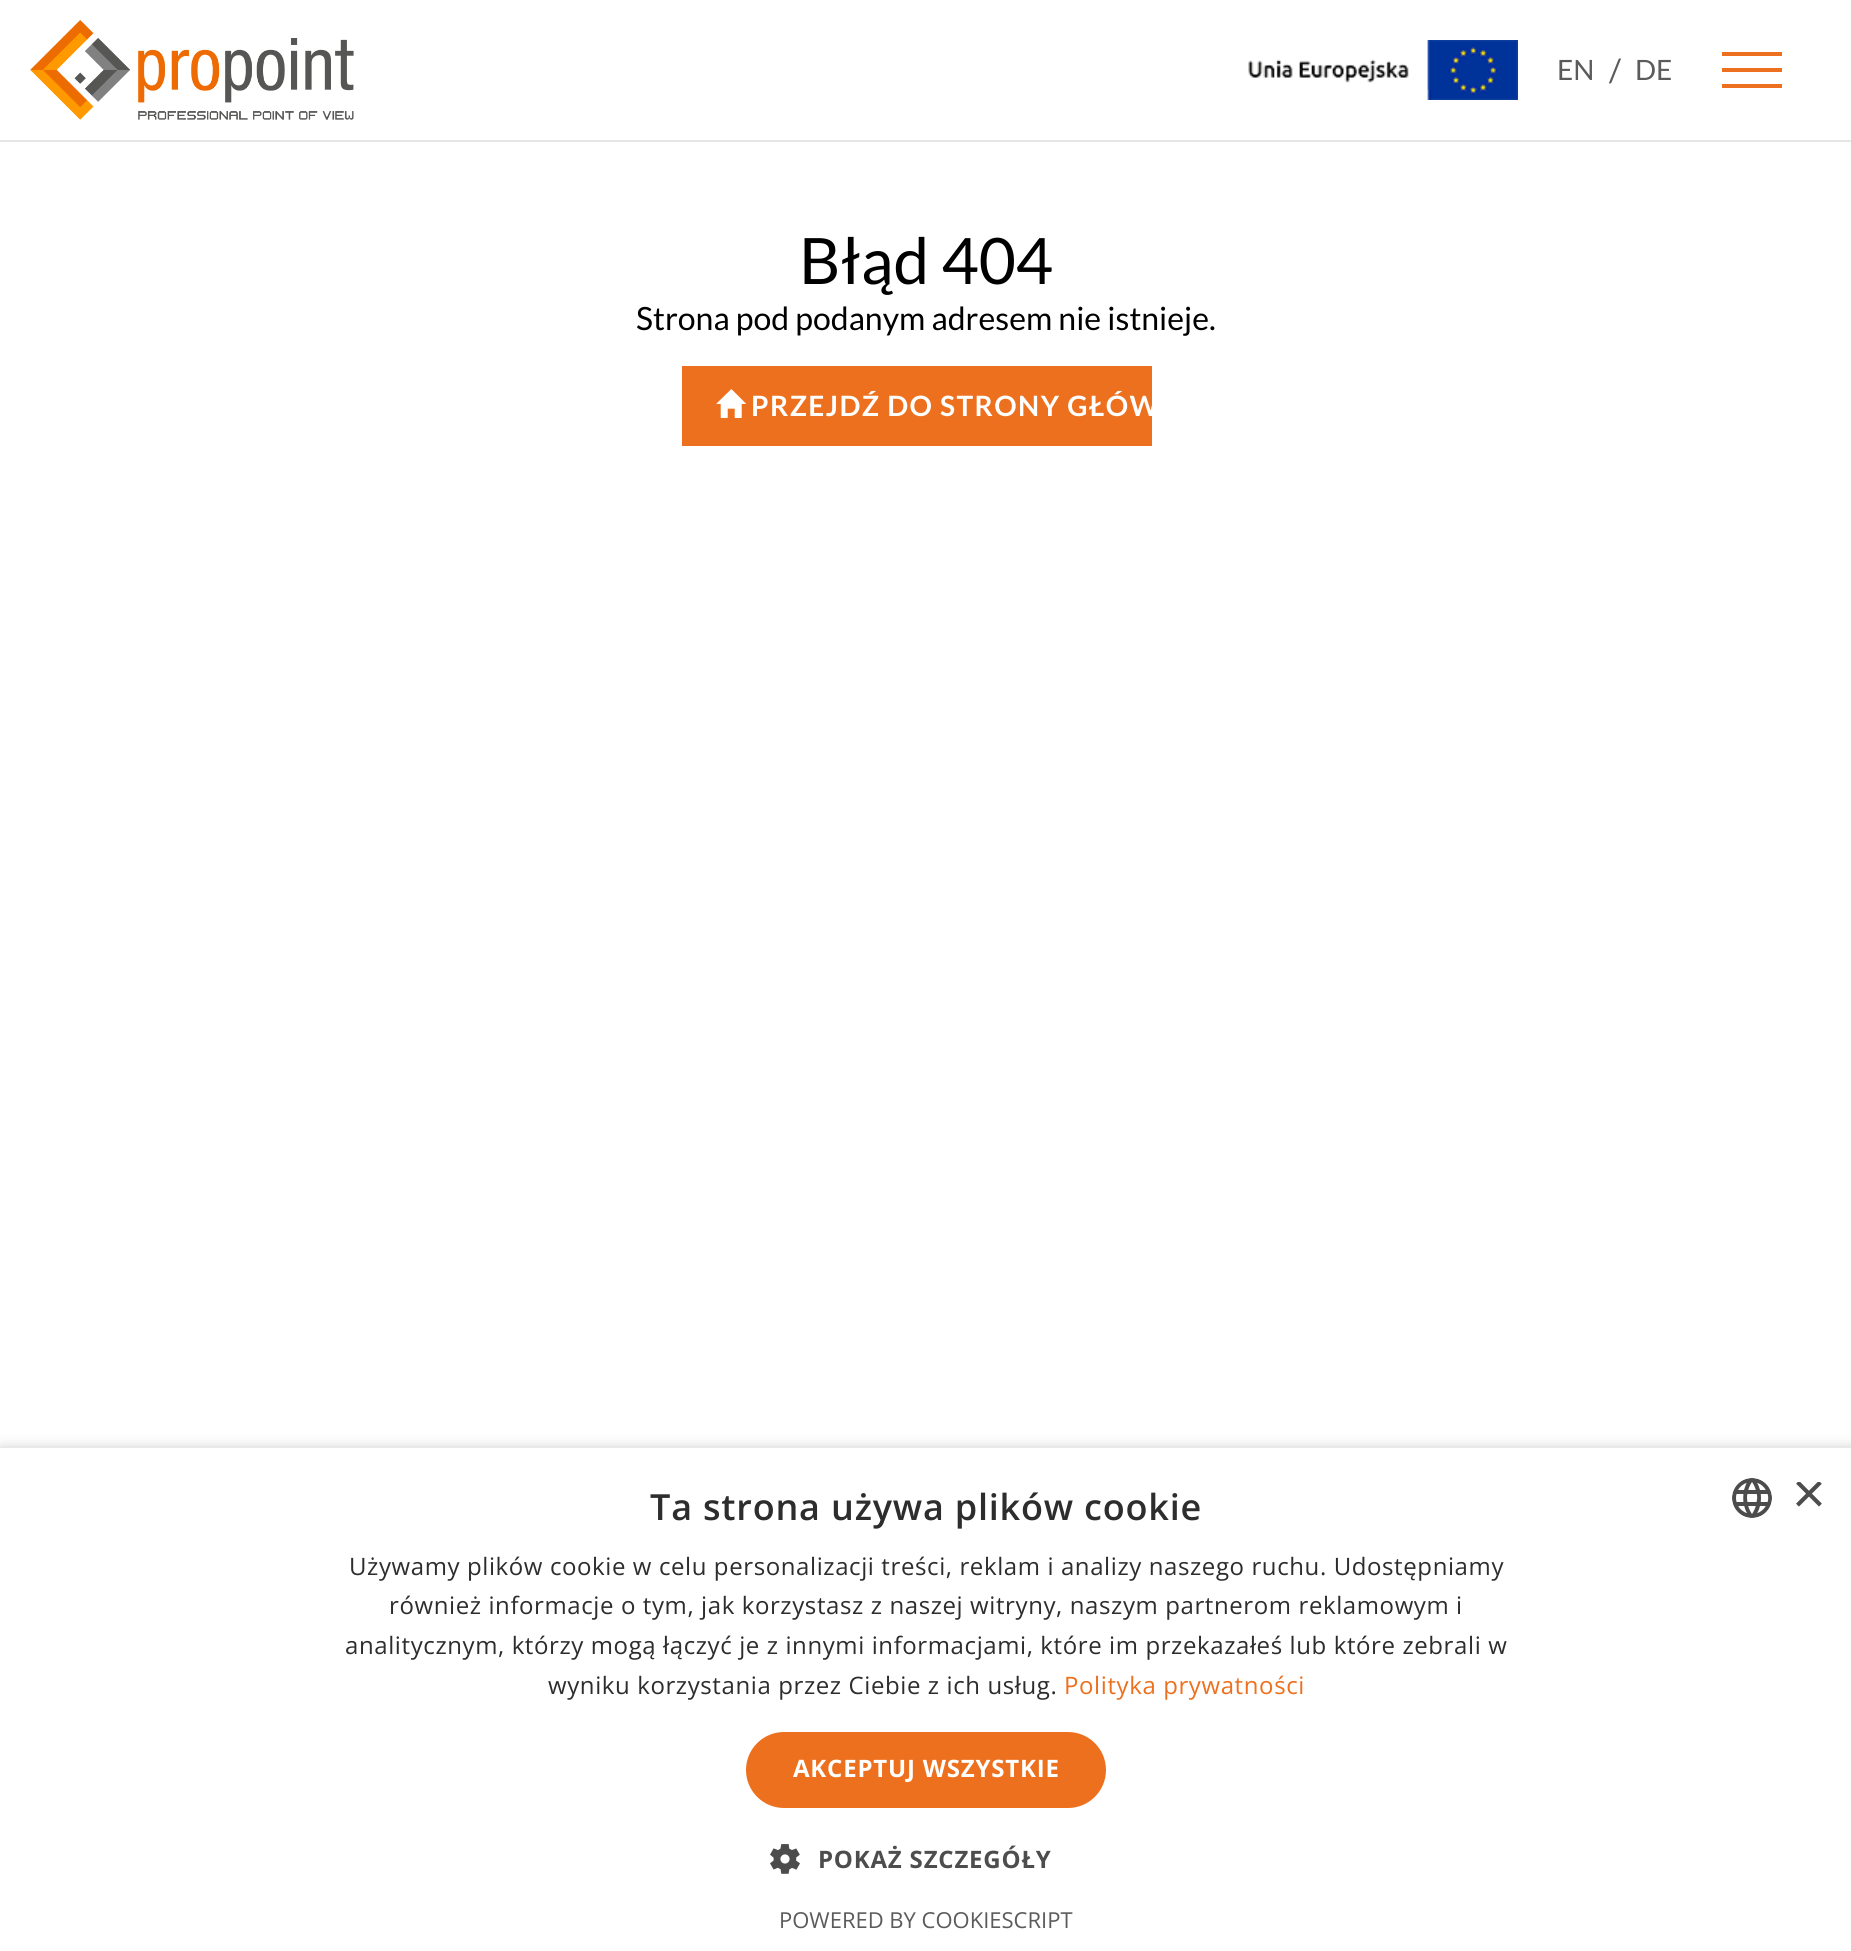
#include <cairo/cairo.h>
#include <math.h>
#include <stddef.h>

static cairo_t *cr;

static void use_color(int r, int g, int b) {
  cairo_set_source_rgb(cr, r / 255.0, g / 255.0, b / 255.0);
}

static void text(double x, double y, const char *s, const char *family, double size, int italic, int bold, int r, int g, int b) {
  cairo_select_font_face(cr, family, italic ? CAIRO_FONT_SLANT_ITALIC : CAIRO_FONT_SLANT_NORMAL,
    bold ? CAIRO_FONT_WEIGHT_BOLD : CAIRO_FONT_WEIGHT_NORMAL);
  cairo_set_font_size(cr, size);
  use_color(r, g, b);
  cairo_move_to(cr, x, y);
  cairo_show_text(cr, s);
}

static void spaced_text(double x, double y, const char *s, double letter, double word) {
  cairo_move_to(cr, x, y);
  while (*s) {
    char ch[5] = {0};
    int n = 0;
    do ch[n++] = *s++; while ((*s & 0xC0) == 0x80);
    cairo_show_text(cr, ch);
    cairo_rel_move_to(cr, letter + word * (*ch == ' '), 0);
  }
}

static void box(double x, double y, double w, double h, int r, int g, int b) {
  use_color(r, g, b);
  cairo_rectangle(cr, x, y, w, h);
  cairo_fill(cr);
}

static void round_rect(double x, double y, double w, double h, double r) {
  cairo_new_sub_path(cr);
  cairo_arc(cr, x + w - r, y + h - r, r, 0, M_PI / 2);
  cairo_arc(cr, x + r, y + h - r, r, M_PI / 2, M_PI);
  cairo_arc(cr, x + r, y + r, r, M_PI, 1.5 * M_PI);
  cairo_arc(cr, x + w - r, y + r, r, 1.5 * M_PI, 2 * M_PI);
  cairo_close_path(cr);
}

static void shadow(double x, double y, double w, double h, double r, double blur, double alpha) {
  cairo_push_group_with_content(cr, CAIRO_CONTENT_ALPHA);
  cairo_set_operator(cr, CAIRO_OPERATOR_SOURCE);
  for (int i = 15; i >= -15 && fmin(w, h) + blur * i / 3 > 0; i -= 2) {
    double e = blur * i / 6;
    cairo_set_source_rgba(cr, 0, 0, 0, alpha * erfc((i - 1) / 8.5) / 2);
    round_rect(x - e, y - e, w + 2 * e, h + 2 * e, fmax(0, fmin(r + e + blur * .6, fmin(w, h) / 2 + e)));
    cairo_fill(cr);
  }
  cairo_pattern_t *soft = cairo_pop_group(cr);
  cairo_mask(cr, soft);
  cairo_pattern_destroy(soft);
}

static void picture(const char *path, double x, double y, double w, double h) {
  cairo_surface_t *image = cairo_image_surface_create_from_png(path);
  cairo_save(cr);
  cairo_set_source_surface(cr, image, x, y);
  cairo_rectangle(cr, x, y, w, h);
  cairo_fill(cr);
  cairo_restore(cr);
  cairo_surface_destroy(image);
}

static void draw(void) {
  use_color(255, 255, 255);
  cairo_paint(cr);
  box(0, 140, 1851, 2, 230, 230, 230);
  picture("img_01.png", 30, 20, 324, 100);
  picture("img_02.png", 1248, 40, 270, 60);
  box(1722, 52, 60, 4, 237, 112, 30);
  box(1722, 68, 60, 4, 237, 112, 30);
  box(1722, 84, 60, 4, 237, 112, 30);
  box(682, 366, 470, 80, 237, 112, 30);
  picture("img_03.png", 716, 389, 30, 29);
  use_color(0, 0, 0);
  shadow(2, 1452, 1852, 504, 0, 8, 0.35);
  box(0, 1448, 1851, 503, 255, 255, 255);
  picture("img_04.png", 1732, 1478, 40, 40);
  use_color(237, 112, 30);
  round_rect(746, 1732, 360, 76, 38);
  cairo_fill(cr);
  picture("img_05.png", 770, 1844, 30, 30);
  text(1557, 80, "EN", "Lato", 28, 0, 0, 91, 91, 91);
  text(1609, 82, "/", "Lato", 32, 0, 0, 91, 91, 91);
  text(1635, 80, "DE", "Lato", 28, 0, 0, 91, 91, 91);
  text(799, 284, "Błąd 404", "Lato", 64, 0, 0, 0, 0, 0);
  text(636, 330, "Strona pod podanym adresem nie istnieje.", "Lato", 32, 0, 0, 0, 0, 0);
  cairo_select_font_face(cr, "Lato", CAIRO_FONT_SLANT_NORMAL, CAIRO_FONT_WEIGHT_BOLD);
  cairo_set_font_size(cr, 28);
  use_color(255, 255, 255);
  spaced_text(751, 416, "PRZEJDŹ DO STRONY GŁÓW", 1.4, 0);
  cairo_select_font_face(cr, "Open Sans SemiBold", CAIRO_FONT_SLANT_NORMAL, CAIRO_FONT_WEIGHT_NORMAL);
  cairo_set_font_size(cr, 36);
  use_color(45, 45, 45);
  spaced_text(650, 1520, "Ta strona używa plików cookie", 0.8, 0);
  cairo_save(cr);
  cairo_rectangle(cr, 1792, 1482, 30, 30);
  cairo_clip(cr);
  text(1792, 1513, "×", "Liberation Sans", 58, 0, 0, 77, 77, 77);
  cairo_restore(cr);
  cairo_select_font_face(cr, "Open Sans", CAIRO_FONT_SLANT_NORMAL, CAIRO_FONT_WEIGHT_NORMAL);
  cairo_set_font_size(cr, 24);
  spaced_text(349, 1575, "Używamy plików cookie w celu personalizacji treści, reklam i analizy naszego ruchu. Udostępniamy", 0.6, 0);
  spaced_text(389, 1614, "również informacje o tym, jak korzystasz z naszej witryny, naszym partnerom reklamowym i", 0.6, 0);
  spaced_text(345, 1654, "analitycznym, którzy mogą łączyć je z innymi informacjami, które im przekazałeś lub które zebrali w", 0.6, 0);
  spaced_text(548, 1694, "wyniku korzystania przez Ciebie z ich usług.", 0.6, 0);
  use_color(237, 112, 30);
  spaced_text(1064, 1694, "Polityka prywatności", 0.6, 0);
  cairo_select_font_face(cr, "Open Sans", CAIRO_FONT_SLANT_NORMAL, CAIRO_FONT_WEIGHT_BOLD);
  use_color(255, 255, 255);
  spaced_text(793, 1777, "AKCEPTUJ WSZYSTKIE", 0.8, 0);
  use_color(77, 77, 77);
  spaced_text(818, 1868, "POKAŻ SZCZEGÓŁY", 0.8, 0);
  text(779, 1928, "POWERED BY COOKIESCRIPT", "Open Sans", 22, 0, 0, 91, 91, 91);
}

int main(void) {
  cairo_surface_t *surface = cairo_image_surface_create(CAIRO_FORMAT_RGB24, 1851, 1951);
  cr = cairo_create(surface);
  cairo_font_options_t *options = cairo_font_options_create();
  cairo_font_options_set_hint_metrics(options, CAIRO_HINT_METRICS_OFF);
  cairo_font_options_set_hint_style(options, CAIRO_HINT_STYLE_NONE);
  cairo_set_font_options(cr, options);
  cairo_set_miter_limit(cr, 4);
  draw();
  cairo_surface_write_to_png(surface, "out.png");
  cairo_font_options_destroy(options);
  cairo_destroy(cr);
  cairo_surface_destroy(surface);
  return 0;
}
